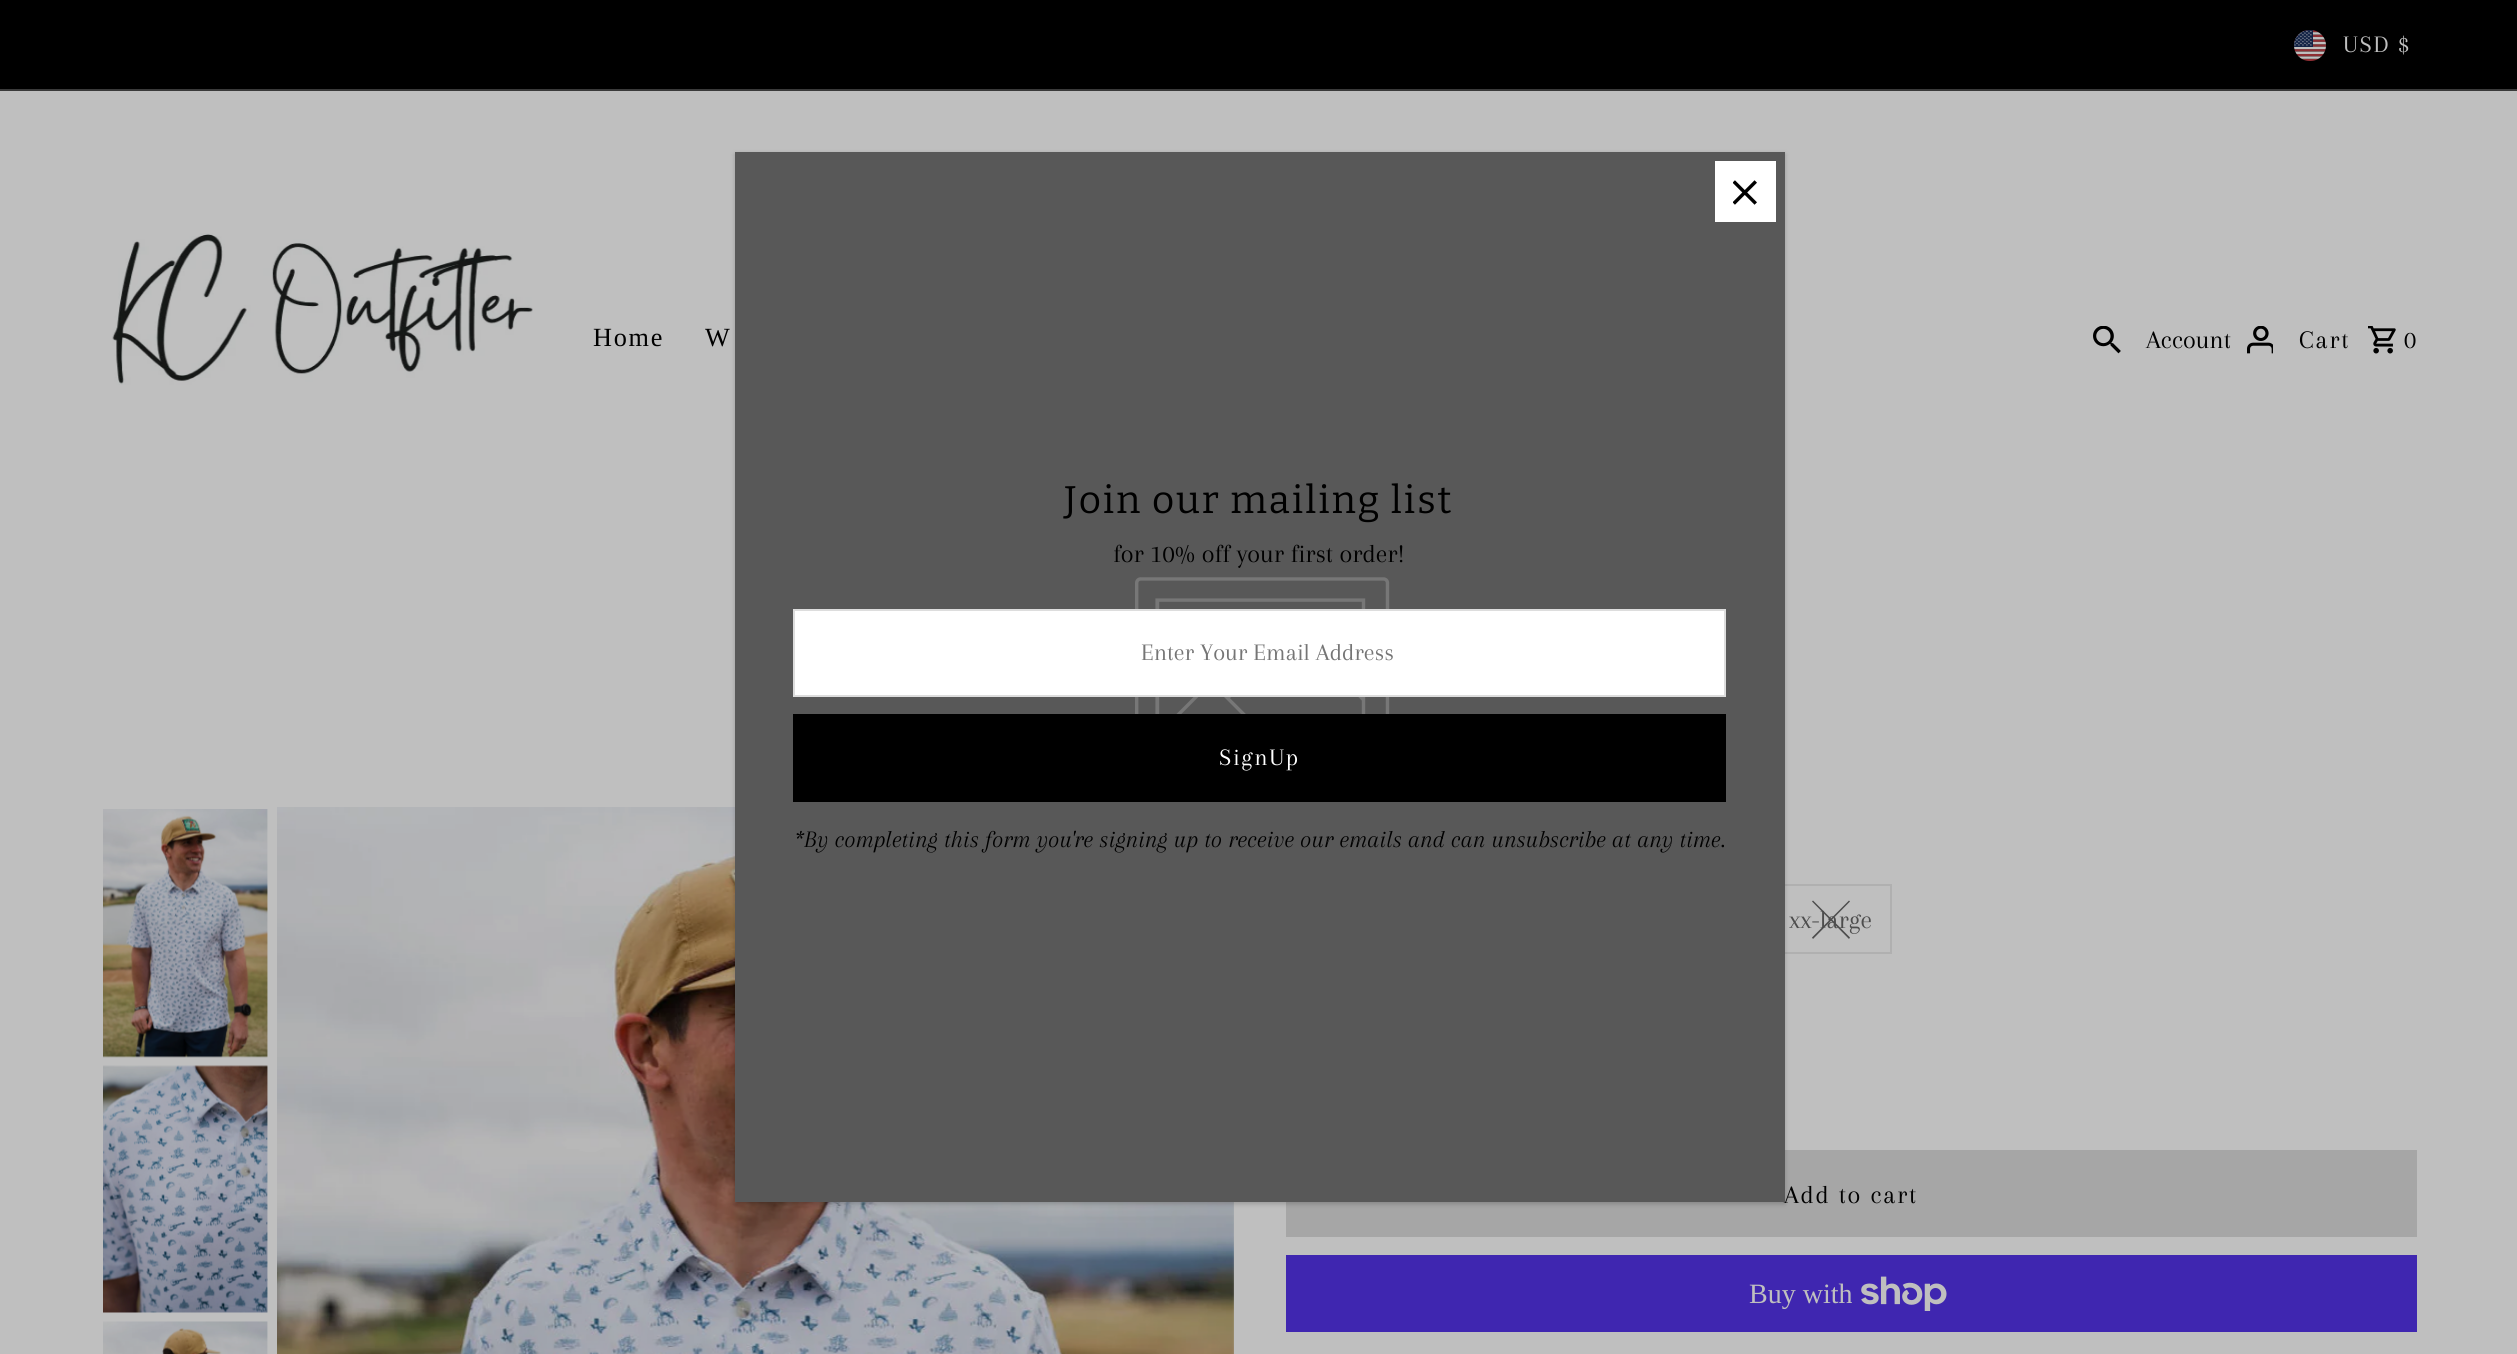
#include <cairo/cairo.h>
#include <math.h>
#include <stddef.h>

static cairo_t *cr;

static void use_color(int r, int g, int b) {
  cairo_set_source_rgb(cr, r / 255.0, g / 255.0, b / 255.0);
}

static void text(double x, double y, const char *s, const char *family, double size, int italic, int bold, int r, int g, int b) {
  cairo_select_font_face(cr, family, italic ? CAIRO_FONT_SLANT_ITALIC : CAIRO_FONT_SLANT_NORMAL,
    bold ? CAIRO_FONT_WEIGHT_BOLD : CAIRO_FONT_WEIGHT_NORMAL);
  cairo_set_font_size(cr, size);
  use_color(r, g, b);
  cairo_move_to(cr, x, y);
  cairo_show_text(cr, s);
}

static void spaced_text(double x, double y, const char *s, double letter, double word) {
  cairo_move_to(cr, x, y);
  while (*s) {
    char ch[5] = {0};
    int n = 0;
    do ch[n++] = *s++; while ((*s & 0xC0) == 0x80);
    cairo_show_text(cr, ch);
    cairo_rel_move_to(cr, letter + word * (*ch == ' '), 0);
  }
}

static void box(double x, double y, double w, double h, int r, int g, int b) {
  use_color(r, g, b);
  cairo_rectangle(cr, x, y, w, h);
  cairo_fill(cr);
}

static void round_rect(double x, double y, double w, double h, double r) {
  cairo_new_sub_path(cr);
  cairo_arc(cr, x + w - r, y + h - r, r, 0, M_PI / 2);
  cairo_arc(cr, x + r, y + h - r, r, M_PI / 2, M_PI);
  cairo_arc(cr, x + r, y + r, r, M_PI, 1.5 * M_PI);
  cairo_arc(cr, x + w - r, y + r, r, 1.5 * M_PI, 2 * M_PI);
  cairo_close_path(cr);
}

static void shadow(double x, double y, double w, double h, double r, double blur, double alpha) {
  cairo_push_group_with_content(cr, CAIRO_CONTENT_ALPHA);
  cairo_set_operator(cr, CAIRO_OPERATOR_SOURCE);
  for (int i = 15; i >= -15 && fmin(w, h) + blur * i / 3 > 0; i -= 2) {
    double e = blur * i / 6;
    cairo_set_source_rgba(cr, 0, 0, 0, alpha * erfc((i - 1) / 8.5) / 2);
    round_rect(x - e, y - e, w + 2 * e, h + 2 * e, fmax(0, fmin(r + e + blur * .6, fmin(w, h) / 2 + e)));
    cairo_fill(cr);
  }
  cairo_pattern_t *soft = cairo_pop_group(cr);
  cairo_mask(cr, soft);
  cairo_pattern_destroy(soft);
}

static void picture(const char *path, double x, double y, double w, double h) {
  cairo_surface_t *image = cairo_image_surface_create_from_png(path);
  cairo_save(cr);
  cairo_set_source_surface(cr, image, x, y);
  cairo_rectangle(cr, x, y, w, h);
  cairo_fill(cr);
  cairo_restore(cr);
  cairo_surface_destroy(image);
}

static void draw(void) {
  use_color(191, 191, 191);
  cairo_paint(cr);
  box(0, 89, 2517, 2, 58, 58, 58);
  box(0, 0, 2517, 89, 0, 0, 0);
  picture("img_01.png", 2294, 30, 32, 31);
  picture("img_02.png", 112, 233, 421, 152);
  picture("img_03.png", 2093, 326, 28, 28);
  picture("img_04.png", 2247, 326, 26, 28);
  picture("img_05.png", 2368, 326, 28, 28);
  picture("img_06.png", 103, 809, 165, 249);
  picture("img_07.png", 103, 1065, 165, 248);
  picture("img_08.png", 103, 1321, 165, 33);
  picture("img_09.png", 277, 807, 957, 547);
  cairo_rectangle(cr, 1770, 885, 121, 68);
  use_color(176, 176, 176);
  cairo_stroke(cr);
  use_color(77, 77, 77);
  cairo_new_path(cr);
  cairo_move_to(cr, 1849, 900.5);
  cairo_line_to(cr, 1850, 901.5);
  cairo_line_to(cr, 1813, 939);
  cairo_line_to(cr, 1812, 937.5);
  cairo_close_path(cr);
  cairo_fill(cr);
  cairo_new_path(cr);
  cairo_move_to(cr, 1850, 937.5);
  cairo_line_to(cr, 1849, 939);
  cairo_line_to(cr, 1812, 901.5);
  cairo_line_to(cr, 1813, 900.5);
  cairo_close_path(cr);
  cairo_fill(cr);
  box(1286, 1150, 1131, 87, 166, 166, 166);
  box(1286, 1255, 1131, 77, 63, 38, 176);
  picture("img_10.png", 1861, 1276, 86, 35);
  use_color(0, 0, 0);
  shadow(735, 154, 1050, 1050, 0, 2.5, 0.2);
  cairo_select_font_face(cr, "Arapey", CAIRO_FONT_SLANT_NORMAL, CAIRO_FONT_WEIGHT_NORMAL);
  cairo_set_font_size(cr, 24.5);
  use_color(191, 191, 191);
  spaced_text(2343, 52, "USD $", 1.75, 0);
  cairo_select_font_face(cr, "Liberation Serif", CAIRO_FONT_SLANT_NORMAL, CAIRO_FONT_WEIGHT_NORMAL);
  cairo_set_font_size(cr, 26.25);
  use_color(0, 0, 0);
  spaced_text(593, 346, "Home", 1.75, 0);
  spaced_text(705, 346, "W", 1.75, 0);
  text(2146, 348, "Account", "Arapey", 26.25, 0, 0, 0, 0, 0);
  spaced_text(2299, 348, "Cart", 1.75, 0);
  spaced_text(2404, 348, "0", 1.75, 0);
  text(1789, 928, "xx-large", "Arapey", 26.25, 0, 0, 77, 77, 77);
  use_color(0, 0, 0);
  spaced_text(1784, 1203, "Add to cart", 1.75, 0);
  text(1749, 1303, "Buy with", "Liberation Serif", 28, 0, 0, 191, 191, 191);
  box(735, 152, 1050, 1050, 88, 88, 88);
  box(1715, 161, 61, 61, 255, 255, 255);
  picture("img_11.png", 1733, 180, 24, 25);
  picture("img_12.png", 1135, 577, 255, 137);
  cairo_select_font_face(cr, "Bitter", CAIRO_FONT_SLANT_NORMAL, CAIRO_FONT_WEIGHT_NORMAL);
  cairo_set_font_size(cr, 38.5);
  use_color(0, 0, 0);
  spaced_text(1064, 513, "Join our mailing list", 1.9, 0);
  text(1113, 562, "for 10% off your first order!", "Arapey", 26.25, 0, 0, 0, 0, 0);
  use_color(255, 255, 255);
  cairo_rectangle(cr, 794, 610, 931, 86);
  cairo_fill_preserve(cr);
  use_color(221, 221, 221);
  cairo_stroke(cr);
  text(1141, 660, "Enter Your Email Address", "Arapey", 24.5, 0, 0, 117, 117, 117);
  box(793, 714, 933, 88, 0, 0, 0);
  use_color(255, 255, 255);
  spaced_text(1219, 765, "SignUp", 1.75, 0);
  text(794, 847, "*By completing this form you're signing up to receive our emails and can unsubscribe at any time.", "Arapey", 24.5, 1, 0, 0, 0, 0);
}

int main(void) {
  cairo_surface_t *surface = cairo_image_surface_create(CAIRO_FORMAT_RGB24, 2517, 1354);
  cr = cairo_create(surface);
  cairo_font_options_t *options = cairo_font_options_create();
  cairo_font_options_set_hint_metrics(options, CAIRO_HINT_METRICS_OFF);
  cairo_font_options_set_hint_style(options, CAIRO_HINT_STYLE_NONE);
  cairo_set_font_options(cr, options);
  cairo_set_miter_limit(cr, 4);
  draw();
  cairo_surface_write_to_png(surface, "out.png");
  cairo_font_options_destroy(options);
  cairo_destroy(cr);
  cairo_surface_destroy(surface);
  return 0;
}
